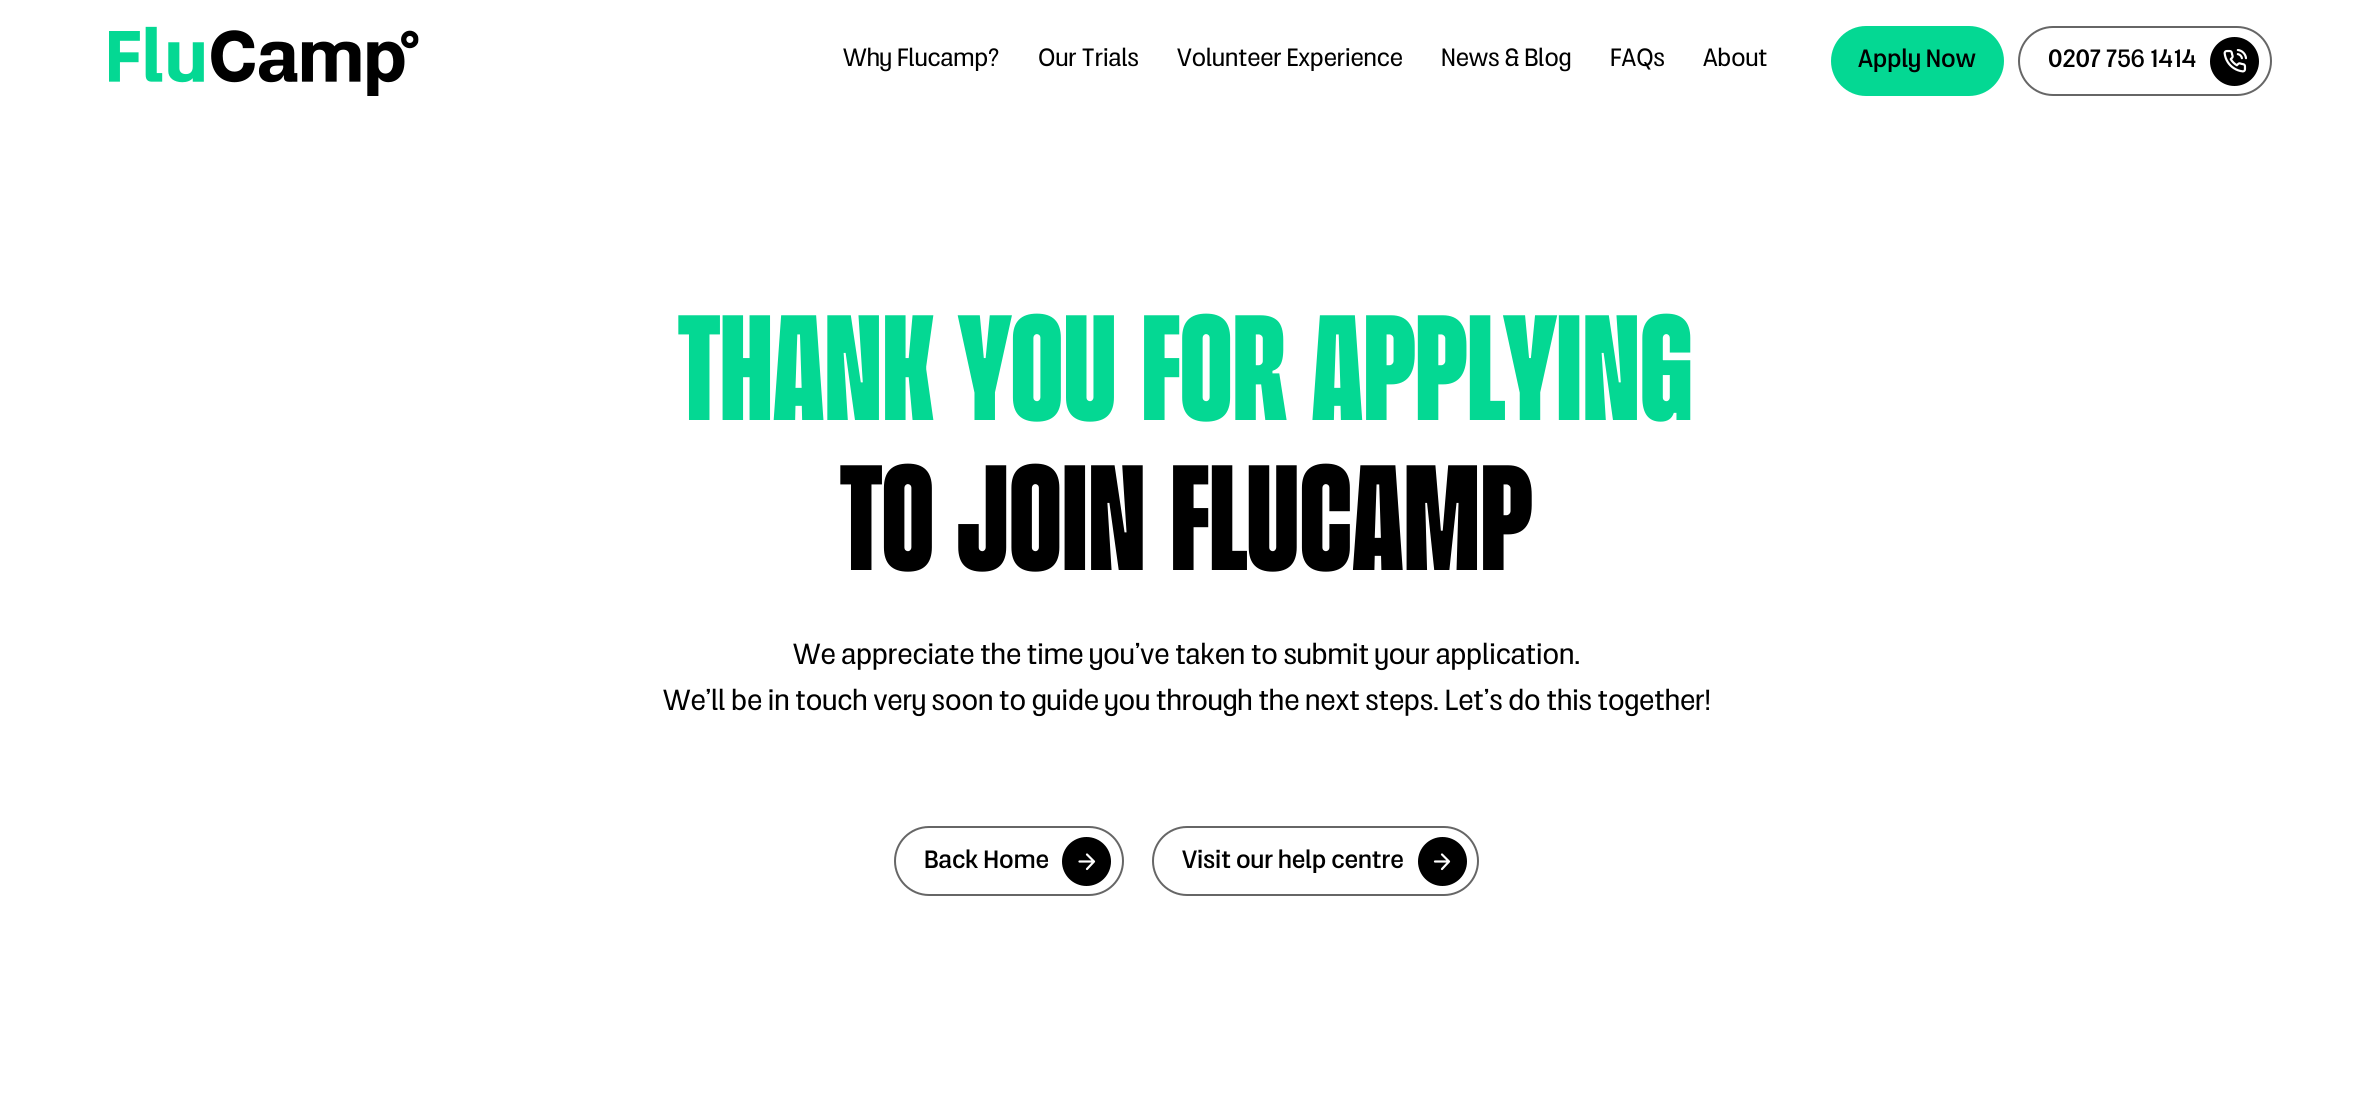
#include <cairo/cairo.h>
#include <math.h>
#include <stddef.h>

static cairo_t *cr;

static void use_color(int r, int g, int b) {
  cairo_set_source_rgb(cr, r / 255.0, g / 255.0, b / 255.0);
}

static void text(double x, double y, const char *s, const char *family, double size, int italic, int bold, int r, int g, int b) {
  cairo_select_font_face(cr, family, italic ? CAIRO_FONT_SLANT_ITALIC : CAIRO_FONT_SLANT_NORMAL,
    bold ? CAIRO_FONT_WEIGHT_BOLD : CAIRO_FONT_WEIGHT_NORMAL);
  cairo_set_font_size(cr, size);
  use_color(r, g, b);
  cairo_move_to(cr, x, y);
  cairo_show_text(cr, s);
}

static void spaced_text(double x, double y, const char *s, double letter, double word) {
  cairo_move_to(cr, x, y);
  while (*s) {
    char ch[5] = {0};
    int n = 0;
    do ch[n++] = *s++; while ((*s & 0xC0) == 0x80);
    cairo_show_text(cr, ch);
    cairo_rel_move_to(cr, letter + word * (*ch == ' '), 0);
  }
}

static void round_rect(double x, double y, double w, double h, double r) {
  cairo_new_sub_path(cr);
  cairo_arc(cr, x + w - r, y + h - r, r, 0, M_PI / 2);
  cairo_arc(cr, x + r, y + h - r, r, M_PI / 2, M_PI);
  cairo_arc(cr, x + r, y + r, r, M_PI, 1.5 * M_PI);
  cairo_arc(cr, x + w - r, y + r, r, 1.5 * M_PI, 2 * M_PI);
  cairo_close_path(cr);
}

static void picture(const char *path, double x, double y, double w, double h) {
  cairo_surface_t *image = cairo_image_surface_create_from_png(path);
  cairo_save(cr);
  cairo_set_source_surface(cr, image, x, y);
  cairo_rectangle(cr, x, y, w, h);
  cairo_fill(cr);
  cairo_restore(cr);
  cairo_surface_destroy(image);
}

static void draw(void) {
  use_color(255, 255, 255);
  cairo_paint(cr);
  picture("img_01.png", 109, 26, 310, 70);
  use_color(4, 216, 147);
  round_rect(1831, 26, 173, 70, 35);
  cairo_fill(cr);
  round_rect(2019, 27, 252, 68, 34);
  use_color(102, 102, 102);
  cairo_stroke(cr);
  use_color(0, 0, 0);
  cairo_arc(cr, 2234.5, 61.5, 24.5, 0, 2 * M_PI);
  cairo_fill(cr);
  picture("img_02.png", 2223, 49, 24, 24);
  round_rect(895, 827, 228, 68, 34);
  use_color(102, 102, 102);
  cairo_stroke(cr);
  use_color(0, 0, 0);
  cairo_arc(cr, 1086.5, 861.5, 24.5, 0, 2 * M_PI);
  cairo_fill(cr);
  cairo_new_path(cr);
  cairo_move_to(cr, 1079.5, 861.5);
  cairo_line_to(cr, 1094, 861.5);
  cairo_move_to(cr, 1087, 854.5);
  cairo_line_to(cr, 1094, 861.5);
  cairo_line_to(cr, 1087, 869);
  use_color(255, 255, 255);
  cairo_set_line_width(cr, 2.2);
  cairo_set_line_cap(cr, CAIRO_LINE_CAP_ROUND);
  cairo_set_line_join(cr, CAIRO_LINE_JOIN_ROUND);
  cairo_stroke(cr);
  round_rect(1153, 827, 325, 68, 34);
  use_color(102, 102, 102);
  cairo_set_line_width(cr, 2);
  cairo_set_line_cap(cr, CAIRO_LINE_CAP_BUTT);
  cairo_set_line_join(cr, CAIRO_LINE_JOIN_MITER);
  cairo_stroke(cr);
  use_color(0, 0, 0);
  cairo_arc(cr, 1442.5, 861.5, 24.5, 0, 2 * M_PI);
  cairo_fill(cr);
  cairo_new_path(cr);
  cairo_move_to(cr, 1435, 861.5);
  cairo_line_to(cr, 1449, 861.5);
  cairo_move_to(cr, 1442, 854.5);
  cairo_line_to(cr, 1449, 861.5);
  cairo_line_to(cr, 1442, 869);
  use_color(255, 255, 255);
  cairo_set_line_width(cr, 2.2);
  cairo_set_line_cap(cr, CAIRO_LINE_CAP_ROUND);
  cairo_set_line_join(cr, CAIRO_LINE_JOIN_ROUND);
  cairo_stroke(cr);
  text(843, 66, "Why Flucamp?", "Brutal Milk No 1", 25, 0, 0, 0, 0, 0);
  text(1038, 66, "Our Trials", "Brutal Milk No 1", 25, 0, 0, 0, 0, 0);
  text(1177, 66, "Volunteer Experience", "Brutal Milk No 1", 25, 0, 0, 0, 0, 0);
  text(1441, 66, "News & Blog", "Brutal Milk No 1", 25, 0, 0, 0, 0, 0);
  text(1610, 66, "FAQs", "Brutal Milk No 1", 25, 0, 0, 0, 0, 0);
  text(1703, 66, "About", "Brutal Milk No 1", 25, 0, 0, 0, 0, 0);
  text(1858, 67, "Apply Now", "Brutal Milk No 1 Medium", 25, 0, 0, 0, 0, 0);
  text(2048, 67, "0207 756 1414", "Brutal Milk No 1 Medium", 25, 0, 0, 0, 0, 0);
  cairo_select_font_face(cr, "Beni", CAIRO_FONT_SLANT_NORMAL, CAIRO_FONT_WEIGHT_BOLD);
  cairo_set_font_size(cr, 166.5);
  use_color(4, 216, 147);
  spaced_text(679, 420, "Thank you for applying", 0.25, 0);
  use_color(0, 0, 0);
  spaced_text(841, 570, "to join FluCamp", 0.25, 0);
  text(793, 664, "We appreciate the time you’ve taken to submit your application.", "Brutal Milk No 1", 29, 0, 0, 0, 0, 0);
  text(663, 710, "We’ll be in touch very soon to guide you through the next steps. Let’s do this together!", "Brutal Milk No 1", 29, 0, 0, 0, 0, 0);
  text(924, 868, "Back Home", "Brutal Milk No 1 Medium", 25, 0, 0, 0, 0, 0);
  text(1182, 868, "Visit our help centre", "Brutal Milk No 1 Medium", 25, 0, 0, 0, 0, 0);
}

int main(void) {
  cairo_surface_t *surface = cairo_image_surface_create(CAIRO_FORMAT_RGB24, 2373, 1103);
  cr = cairo_create(surface);
  cairo_font_options_t *options = cairo_font_options_create();
  cairo_font_options_set_hint_metrics(options, CAIRO_HINT_METRICS_OFF);
  cairo_font_options_set_hint_style(options, CAIRO_HINT_STYLE_NONE);
  cairo_set_font_options(cr, options);
  cairo_set_miter_limit(cr, 4);
  draw();
  cairo_surface_write_to_png(surface, "out.png");
  cairo_font_options_destroy(options);
  cairo_destroy(cr);
  cairo_surface_destroy(surface);
  return 0;
}
